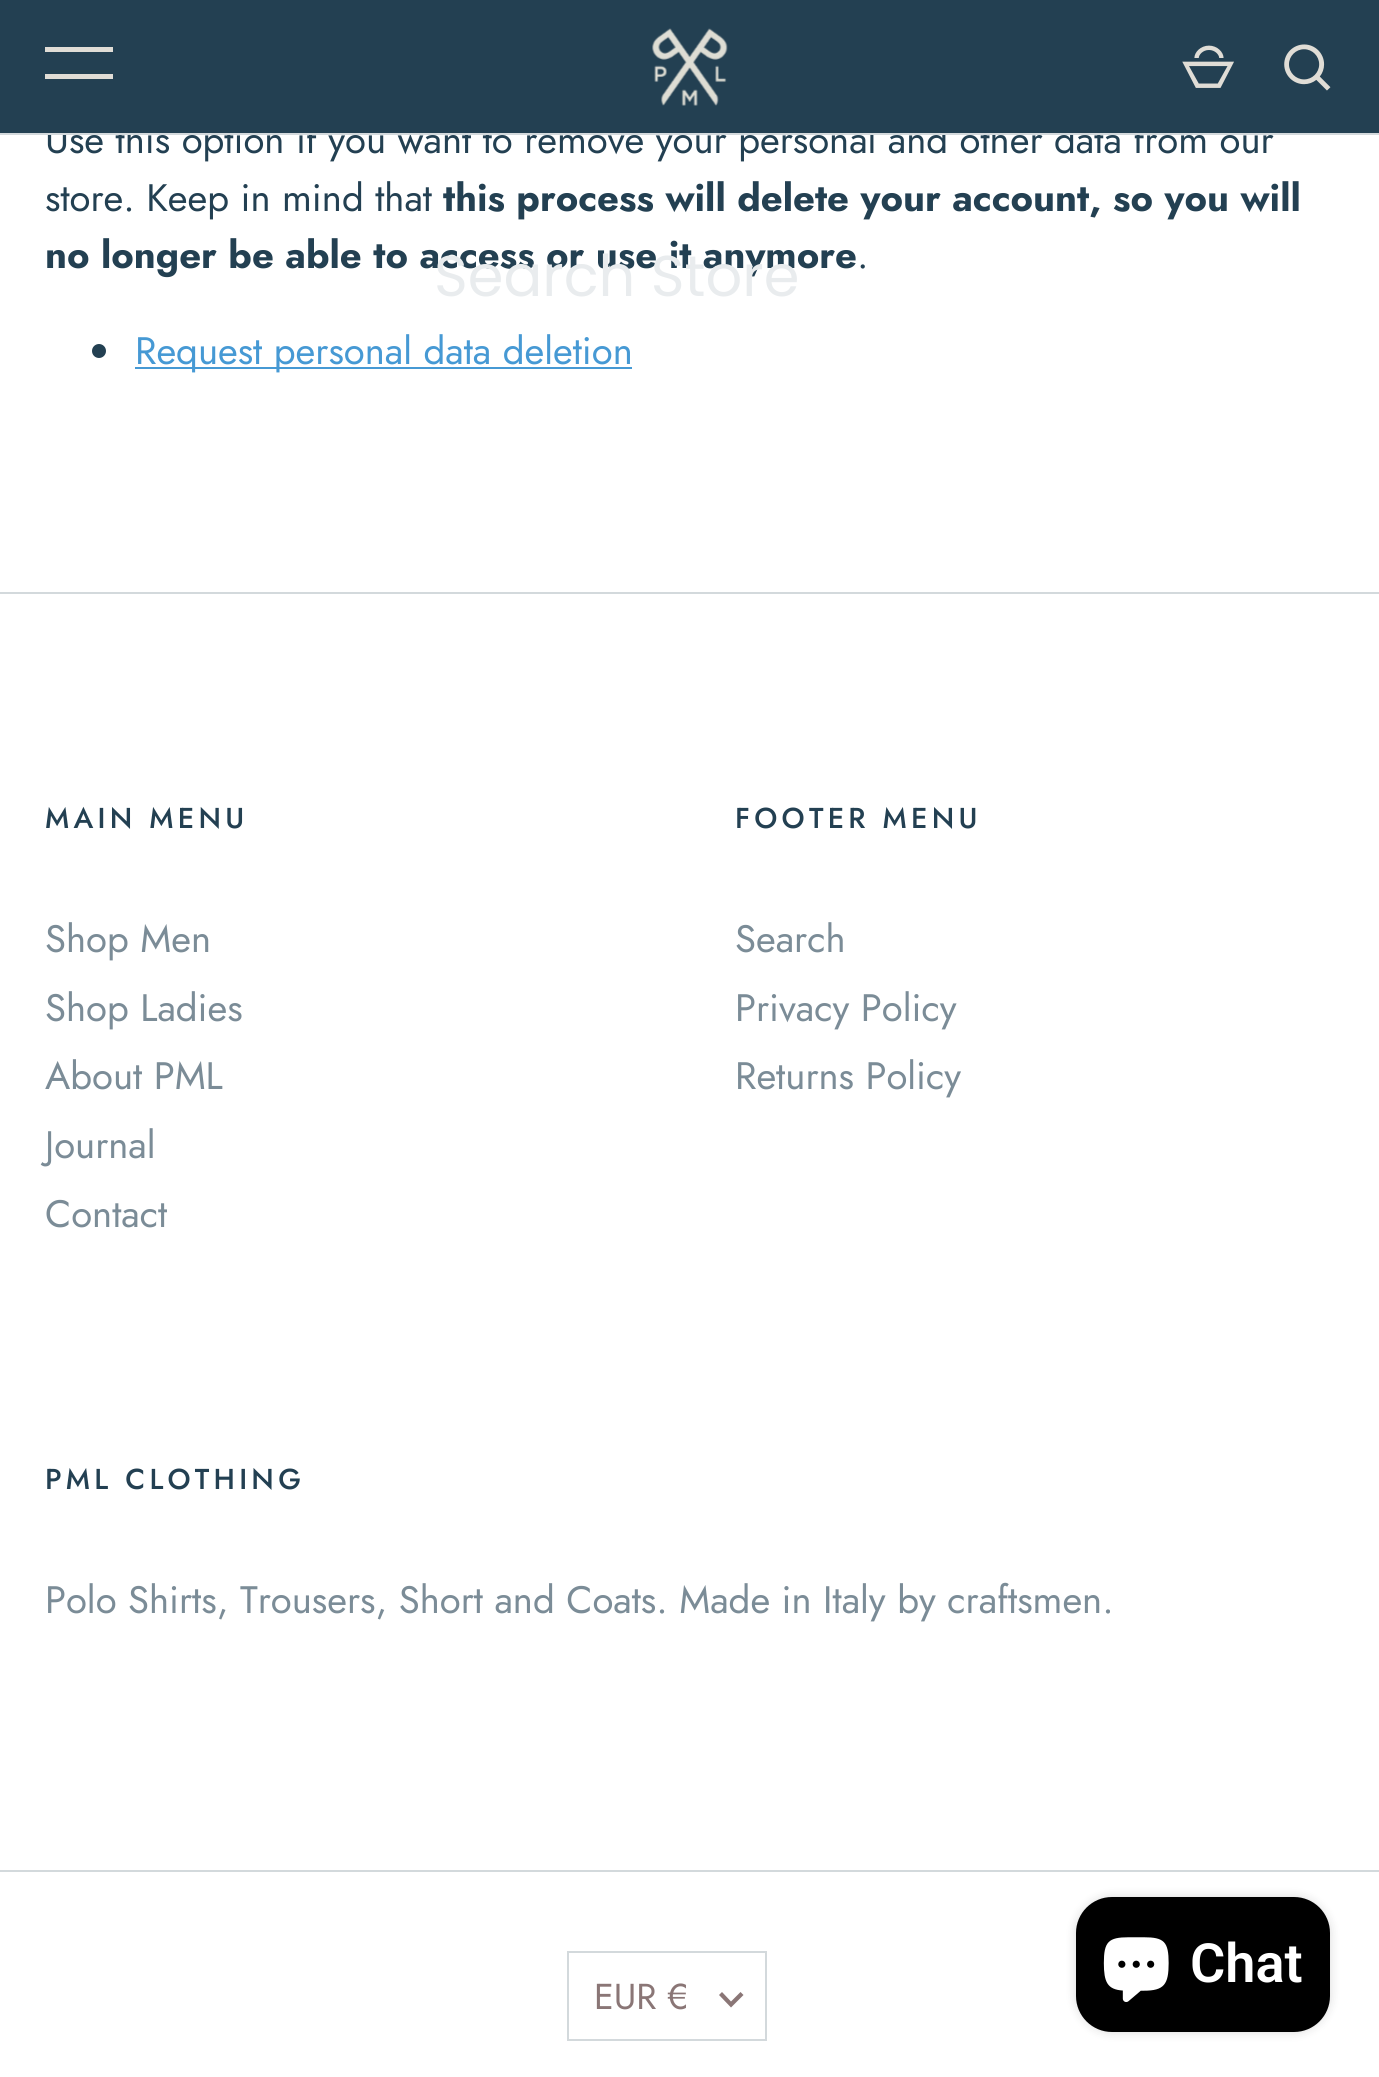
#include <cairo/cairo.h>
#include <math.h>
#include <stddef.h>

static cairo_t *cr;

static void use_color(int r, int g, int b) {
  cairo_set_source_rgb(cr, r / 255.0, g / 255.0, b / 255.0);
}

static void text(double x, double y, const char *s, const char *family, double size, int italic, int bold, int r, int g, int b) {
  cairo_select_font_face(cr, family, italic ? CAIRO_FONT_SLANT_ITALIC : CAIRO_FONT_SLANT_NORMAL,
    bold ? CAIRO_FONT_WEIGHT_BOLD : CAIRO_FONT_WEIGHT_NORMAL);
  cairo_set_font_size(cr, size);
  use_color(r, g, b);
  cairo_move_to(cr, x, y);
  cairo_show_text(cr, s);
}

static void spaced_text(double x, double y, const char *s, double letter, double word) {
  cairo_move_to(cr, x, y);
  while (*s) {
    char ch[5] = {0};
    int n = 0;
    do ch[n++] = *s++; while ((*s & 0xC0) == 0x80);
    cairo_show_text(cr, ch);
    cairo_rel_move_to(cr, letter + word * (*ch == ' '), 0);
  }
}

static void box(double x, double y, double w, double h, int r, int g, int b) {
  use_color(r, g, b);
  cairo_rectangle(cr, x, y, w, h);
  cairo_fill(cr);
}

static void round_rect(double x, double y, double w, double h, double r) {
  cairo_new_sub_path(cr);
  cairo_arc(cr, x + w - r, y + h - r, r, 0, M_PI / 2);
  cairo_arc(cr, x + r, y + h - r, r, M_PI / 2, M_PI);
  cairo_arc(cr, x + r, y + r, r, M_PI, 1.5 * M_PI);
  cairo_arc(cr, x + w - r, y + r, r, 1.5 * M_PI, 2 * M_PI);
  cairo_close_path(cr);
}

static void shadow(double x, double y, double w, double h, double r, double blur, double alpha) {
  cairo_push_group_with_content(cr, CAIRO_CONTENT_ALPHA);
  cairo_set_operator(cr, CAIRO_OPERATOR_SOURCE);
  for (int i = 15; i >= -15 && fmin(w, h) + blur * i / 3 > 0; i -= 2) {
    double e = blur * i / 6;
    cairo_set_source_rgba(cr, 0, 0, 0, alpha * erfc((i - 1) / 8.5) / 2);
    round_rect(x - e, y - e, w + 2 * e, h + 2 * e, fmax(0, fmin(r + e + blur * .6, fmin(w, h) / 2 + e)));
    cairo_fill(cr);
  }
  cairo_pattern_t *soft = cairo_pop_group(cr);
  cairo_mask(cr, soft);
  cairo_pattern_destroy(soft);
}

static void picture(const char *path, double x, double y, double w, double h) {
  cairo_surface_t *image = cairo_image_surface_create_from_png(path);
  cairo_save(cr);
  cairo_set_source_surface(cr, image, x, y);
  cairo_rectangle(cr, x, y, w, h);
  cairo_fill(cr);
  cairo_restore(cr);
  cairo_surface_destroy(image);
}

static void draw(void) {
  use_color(255, 255, 255);
  cairo_paint(cr);
  use_color(35, 64, 82);
  cairo_arc(cr, 99, 351, 7, 0, 2 * M_PI);
  cairo_fill(cr);
  box(135, 367, 497, 2, 70, 153, 212);
  box(0, 0, 1379, 133, 35, 64, 82);
  box(45, 47, 68, 5, 224, 221, 214);
  box(45, 74, 68, 5, 224, 221, 214);
  picture("img_01.png", 652, 28, 76, 78);
  picture("img_02.png", 1182, 45, 52, 43);
  picture("img_03.png", 1284, 44, 47, 47);
  box(0, 592, 1379, 2, 211, 217, 220);
  box(0, 1870, 1379, 2, 211, 217, 220);
  cairo_rectangle(cr, 568, 1952, 198, 88);
  cairo_stroke(cr);
  use_color(138, 118, 118);
  cairo_new_path(cr);
  cairo_move_to(cr, 722, 1992);
  cairo_line_to(cr, 731, 2001.5);
  cairo_line_to(cr, 740.5, 1992);
  cairo_line_to(cr, 743.5, 1995);
  cairo_line_to(cr, 731, 2007.5);
  cairo_line_to(cr, 719, 1995);
  cairo_close_path(cr);
  cairo_fill(cr);
  use_color(0, 0, 0);
  shadow(1076, 1897, 254, 135, 36, 5.5, 0.15);
  use_color(0, 0, 0);
  round_rect(1076, 1897, 254, 135, 36);
  cairo_fill(cr);
  picture("img_04.png", 1103, 1937, 66, 65);
  text(45, 153, "Use this option if you want to remove your personal and other data from our", "Jost", 38.25, 0, 0, 35, 64, 82);
  text(45, 211, "store. Keep in mind that", "Jost", 38.25, 0, 0, 35, 64, 82);
  text(443, 211, "this process will delete your account, so you will", "Jost", 38.25, 0, 1, 35, 64, 82);
  text(45, 268, "no longer be able to access or use it anymore", "Jost", 38.25, 0, 1, 35, 64, 82);
  text(857, 268, ".", "Jost", 38.25, 0, 0, 35, 64, 82);
  text(135, 364, "Request personal data deletion", "Jost", 38.25, 0, 0, 70, 153, 212);
  box(0, 133, 1379, 2, 211, 217, 220);
  text(434, 296, "Search Store", "Poppins", 57.5, 0, 0, 233, 236, 238);
  cairo_select_font_face(cr, "Jost Medium", CAIRO_FONT_SLANT_NORMAL, CAIRO_FONT_WEIGHT_NORMAL);
  cairo_set_font_size(cr, 28.75);
  use_color(35, 64, 82);
  spaced_text(45, 828, "MAIN MENU", 4.25, 0);
  text(45, 952, "Shop Men", "Jost", 38.25, 0, 0, 123, 140, 151);
  text(45, 1021, "Shop Ladies", "Jost", 38.25, 0, 0, 123, 140, 151);
  text(45, 1089, "About PML", "Jost", 38.25, 0, 0, 123, 140, 151);
  text(45, 1158, "Journal", "Jost", 38.25, 0, 0, 123, 140, 151);
  text(45, 1227, "Contact", "Jost", 38.25, 0, 0, 123, 140, 151);
  cairo_select_font_face(cr, "Jost Medium", CAIRO_FONT_SLANT_NORMAL, CAIRO_FONT_WEIGHT_NORMAL);
  cairo_set_font_size(cr, 28.75);
  use_color(35, 64, 82);
  spaced_text(735, 828, "FOOTER MENU", 4.25, 0);
  text(735, 952, "Search", "Jost", 38.25, 0, 0, 123, 140, 151);
  text(735, 1021, "Privacy Policy", "Jost", 38.25, 0, 0, 123, 140, 151);
  text(735, 1089, "Returns Policy", "Jost", 38.25, 0, 0, 123, 140, 151);
  cairo_select_font_face(cr, "Jost Medium", CAIRO_FONT_SLANT_NORMAL, CAIRO_FONT_WEIGHT_NORMAL);
  cairo_set_font_size(cr, 28.75);
  use_color(35, 64, 82);
  spaced_text(45, 1489, "PML CLOTHING", 4.25, 0);
  text(45, 1613, "Polo Shirts, Trousers, Short and Coats. Made in Italy by craftsmen.", "Jost", 38.25, 0, 0, 123, 140, 151);
  text(594, 2009, "EUR €", "Jost", 36, 0, 0, 138, 118, 118);
  text(1190, 1982, "Chat", "Roboto SemiBold", 54, 0, 0, 255, 255, 255);
}

int main(void) {
  cairo_surface_t *surface = cairo_image_surface_create(CAIRO_FORMAT_RGB24, 1379, 2077);
  cr = cairo_create(surface);
  cairo_font_options_t *options = cairo_font_options_create();
  cairo_font_options_set_hint_metrics(options, CAIRO_HINT_METRICS_OFF);
  cairo_font_options_set_hint_style(options, CAIRO_HINT_STYLE_NONE);
  cairo_set_font_options(cr, options);
  cairo_set_miter_limit(cr, 4);
  draw();
  cairo_surface_write_to_png(surface, "out.png");
  cairo_font_options_destroy(options);
  cairo_destroy(cr);
  cairo_surface_destroy(surface);
  return 0;
}
